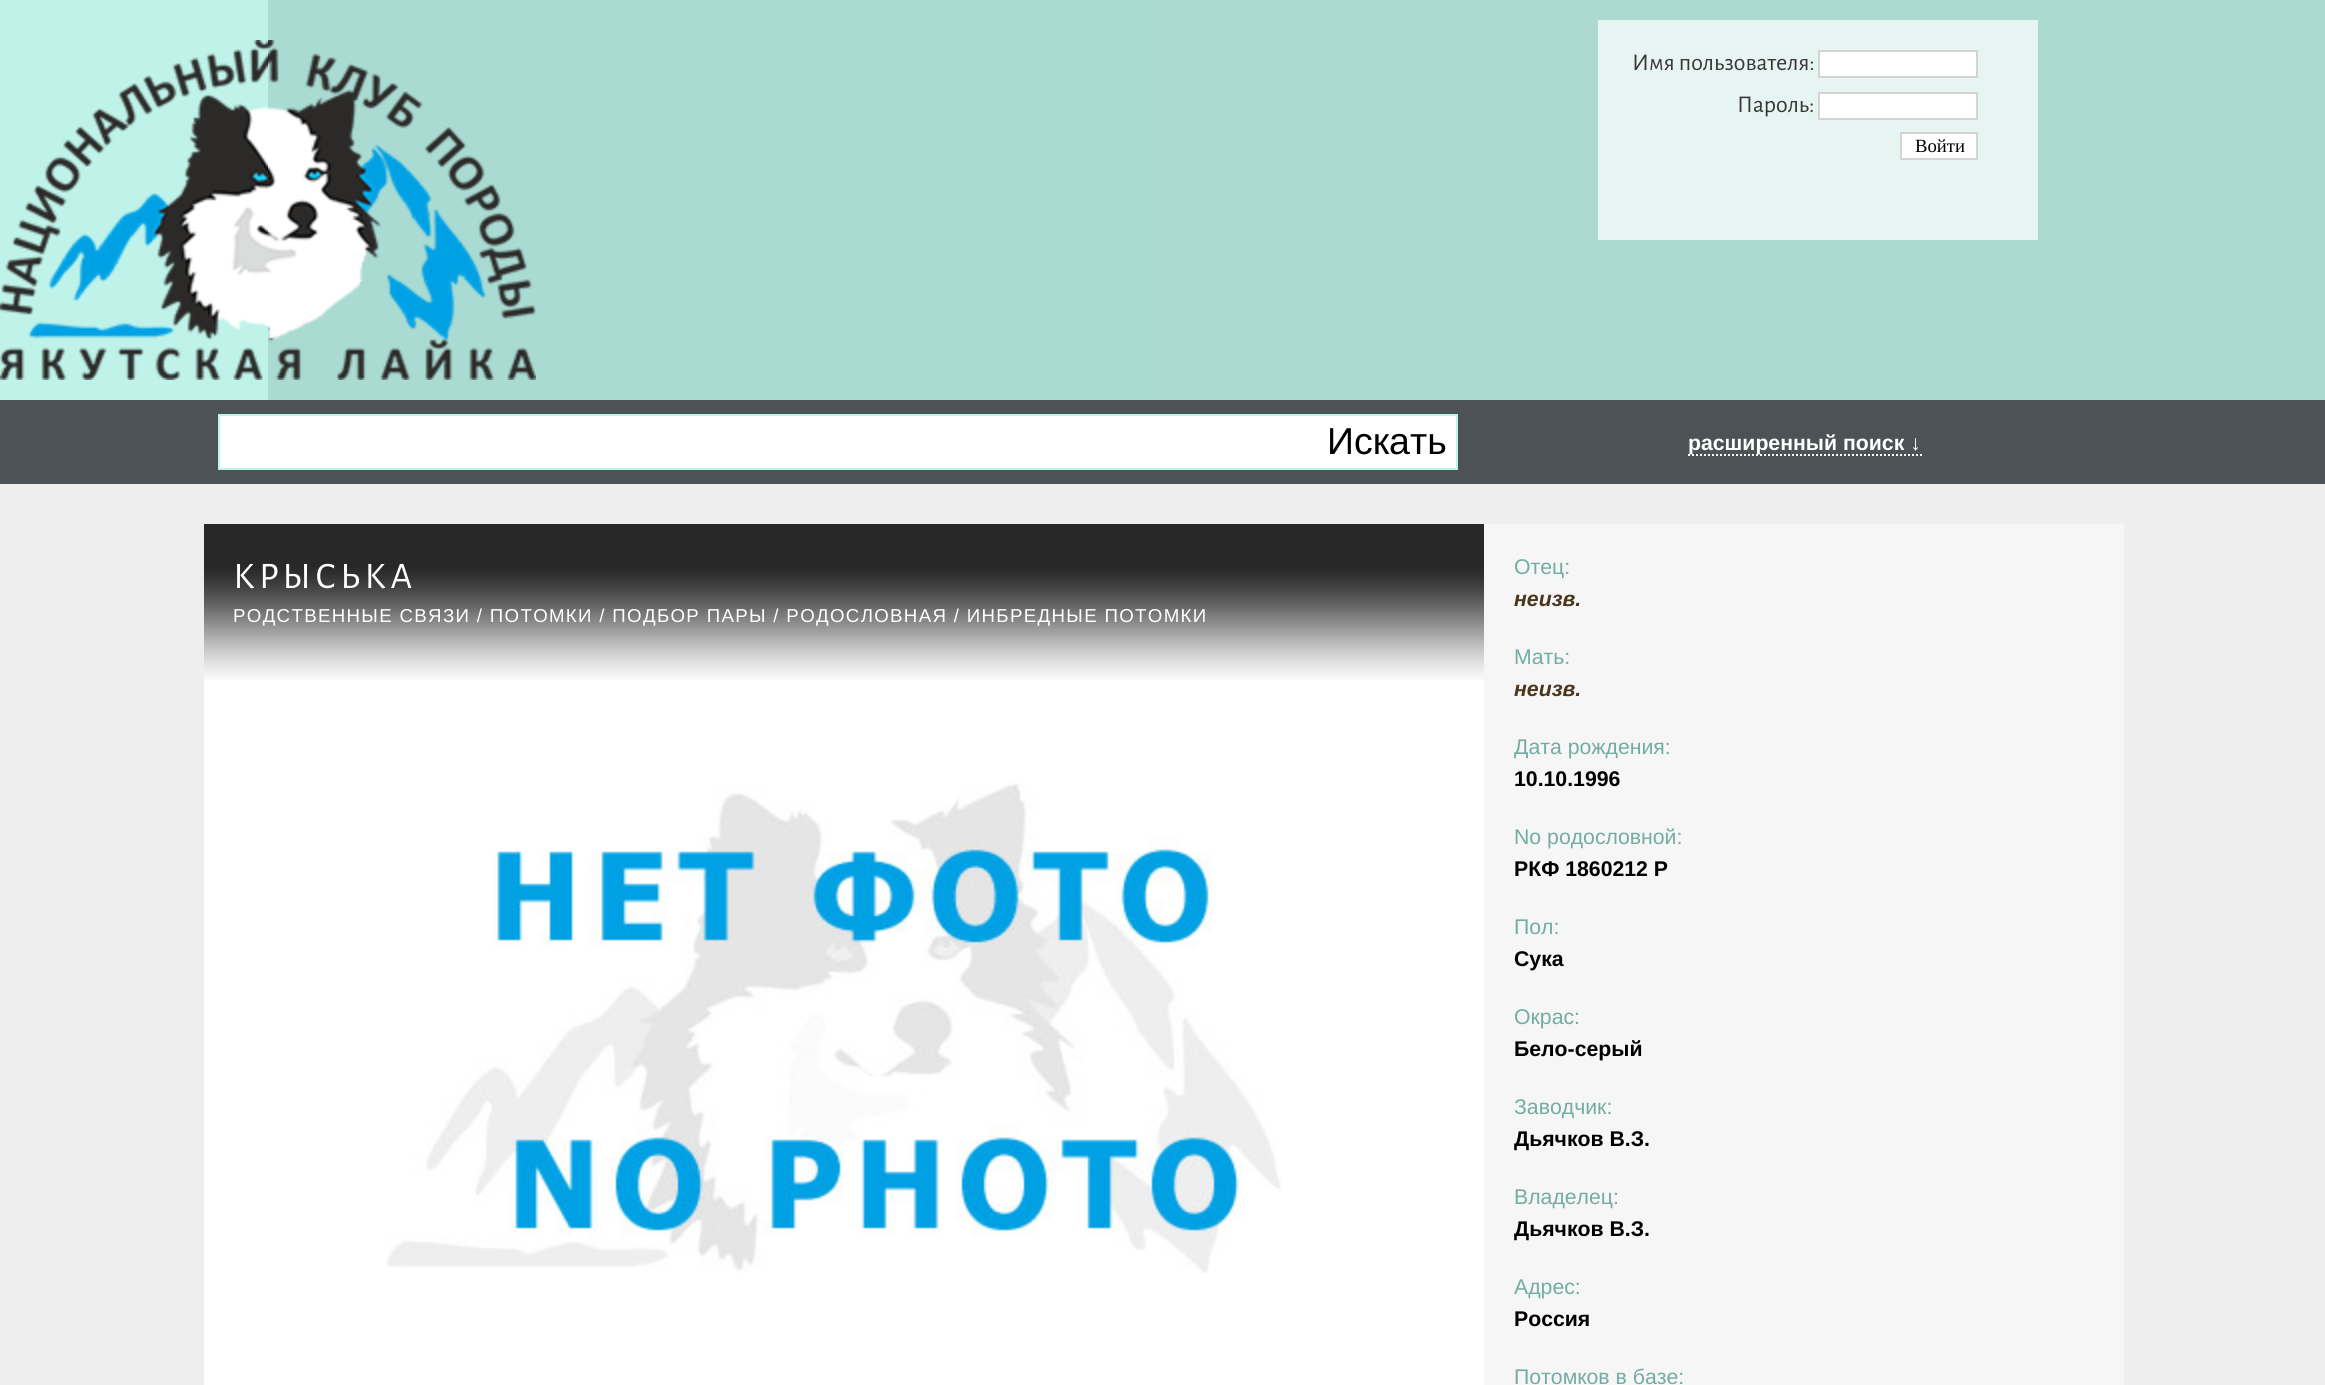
#include <cairo/cairo.h>
#include <math.h>
#include <stddef.h>

static cairo_t *cr;

static void use_color(int r, int g, int b) {
  cairo_set_source_rgb(cr, r / 255.0, g / 255.0, b / 255.0);
}

static void text(double x, double y, const char *s, const char *family, double size, int italic, int bold, int r, int g, int b) {
  cairo_select_font_face(cr, family, italic ? CAIRO_FONT_SLANT_ITALIC : CAIRO_FONT_SLANT_NORMAL,
    bold ? CAIRO_FONT_WEIGHT_BOLD : CAIRO_FONT_WEIGHT_NORMAL);
  cairo_set_font_size(cr, size);
  use_color(r, g, b);
  cairo_move_to(cr, x, y);
  cairo_show_text(cr, s);
}

static void spaced_text(double x, double y, const char *s, double letter, double word) {
  cairo_move_to(cr, x, y);
  while (*s) {
    char ch[5] = {0};
    int n = 0;
    do ch[n++] = *s++; while ((*s & 0xC0) == 0x80);
    cairo_show_text(cr, ch);
    cairo_rel_move_to(cr, letter + word * (*ch == ' '), 0);
  }
}

static void box(double x, double y, double w, double h, int r, int g, int b) {
  use_color(r, g, b);
  cairo_rectangle(cr, x, y, w, h);
  cairo_fill(cr);
}

static void picture(const char *path, double x, double y, double w, double h) {
  cairo_surface_t *image = cairo_image_surface_create_from_png(path);
  cairo_save(cr);
  cairo_set_source_surface(cr, image, x, y);
  cairo_rectangle(cr, x, y, w, h);
  cairo_fill(cr);
  cairo_restore(cr);
  cairo_surface_destroy(image);
}

static void draw(void) {
  use_color(238, 238, 238);
  cairo_paint(cr);
  picture("img_01.png", 0, 0, 2325, 400);
  picture("img_02.png", 0, 40, 268, 340);
  box(268, 0, 896, 400, 170, 219, 211);
  picture("img_03.png", 268, 40, 268, 340);
  box(1598, 20, 440, 220, 230, 244, 242);
  use_color(255, 255, 255);
  cairo_rectangle(cr, 1819, 51, 158, 26);
  cairo_fill_preserve(cr);
  use_color(212, 212, 212);
  cairo_stroke(cr);
  use_color(255, 255, 255);
  cairo_rectangle(cr, 1819, 93, 158, 26);
  cairo_fill_preserve(cr);
  use_color(212, 212, 212);
  cairo_stroke(cr);
  use_color(255, 255, 255);
  cairo_rectangle(cr, 1901, 133, 76, 26);
  cairo_fill_preserve(cr);
  use_color(212, 212, 212);
  cairo_stroke(cr);
  box(0, 400, 2325, 84, 77, 82, 86);
  box(220, 416, 1236, 52, 255, 255, 255);
  box(218, 414, 1240, 2, 188, 243, 234);
  box(218, 468, 1100, 2, 188, 243, 234);
  box(218, 414, 2, 56, 188, 243, 234);
  box(1456, 414, 2, 56, 188, 243, 234);
  box(1318, 468, 140, 2, 188, 243, 234);
  cairo_new_path(cr);
  cairo_move_to(cr, 1688, 455);
  cairo_line_to(cr, 1922, 455);
  use_color(255, 255, 255);
  cairo_set_dash(cr, (double[]){2, 2}, 2, 0);
  cairo_stroke(cr);
  box(204, 568, 1280, 817, 255, 255, 255);
  picture("img_04.png", 386, 783, 895, 491);
  picture("img_05.png", 204, 524, 1280, 156);
  box(1484, 524, 640, 861, 246, 246, 246);
  text(1632, 70, "Имя пользователя:", "Alegreya Sans", 24, 0, 0, 56, 56, 56);
  text(1737, 112, "Пароль:", "Alegreya Sans", 24, 0, 0, 56, 56, 56);
  text(1915, 152, "Войти", "Liberation Serif", 18.67, 0, 0, 0, 0, 0);
  text(1327, 454, "Искать", "Liberation Sans", 37.5, 0, 0, 0, 0, 0);
  text(1688, 450, "расширенный поиск ↓", "Liberation Sans", 21.25, 0, 1, 255, 255, 255);
  cairo_select_font_face(cr, "Alegreya Sans", CAIRO_FONT_SLANT_NORMAL, CAIRO_FONT_WEIGHT_NORMAL);
  cairo_set_font_size(cr, 37.5);
  spaced_text(233, 588, "КРЫСЬКА", 4, 0);
  cairo_select_font_face(cr, "Liberation Sans", CAIRO_FONT_SLANT_NORMAL, CAIRO_FONT_WEIGHT_NORMAL);
  cairo_set_font_size(cr, 18.67);
  spaced_text(233, 622, "РОДСТВЕННЫЕ СВЯЗИ / ПОТОМКИ / ПОДБОР ПАРЫ / РОДОСЛОВНАЯ / ИНБРЕДНЫЕ ПОТОМКИ", 1.33, 0);
  text(1514, 574, "Отец:", "Liberation Sans", 21.25, 0, 0, 115, 172, 161);
  text(1514, 606, "неизв.", "Liberation Sans", 21.25, 1, 1, 75, 54, 27);
  text(1514, 664, "Мать:", "Liberation Sans", 21.25, 0, 0, 115, 172, 161);
  text(1514, 696, "неизв.", "Liberation Sans", 21.25, 1, 1, 75, 54, 27);
  text(1514, 754, "Дата рождения:", "Liberation Sans", 21.25, 0, 0, 115, 172, 161);
  text(1514, 786, "10.10.1996", "Liberation Sans", 21.25, 0, 1, 0, 0, 0);
  text(1514, 844, "No родословной:", "Liberation Sans", 21.25, 0, 0, 115, 172, 161);
  text(1514, 876, "РКФ 1860212 Р", "Liberation Sans", 21.25, 0, 1, 0, 0, 0);
  text(1514, 934, "Пол:", "Liberation Sans", 21.25, 0, 0, 115, 172, 161);
  text(1514, 966, "Сука", "Liberation Sans", 21.25, 0, 1, 0, 0, 0);
  text(1514, 1024, "Окрас:", "Liberation Sans", 21.25, 0, 0, 115, 172, 161);
  text(1514, 1056, "Бело-серый", "Liberation Sans", 21.25, 0, 1, 0, 0, 0);
  text(1514, 1114, "Заводчик:", "Liberation Sans", 21.25, 0, 0, 115, 172, 161);
  text(1514, 1146, "Дьячков В.З.", "Liberation Sans", 21.25, 0, 1, 0, 0, 0);
  text(1514, 1204, "Владелец:", "Liberation Sans", 21.25, 0, 0, 115, 172, 161);
  text(1514, 1236, "Дьячков В.З.", "Liberation Sans", 21.25, 0, 1, 0, 0, 0);
  text(1514, 1294, "Адрес:", "Liberation Sans", 21.25, 0, 0, 115, 172, 161);
  text(1514, 1326, "Россия", "Liberation Sans", 21.25, 0, 1, 0, 0, 0);
  text(1514, 1384, "Потомков в базе:", "Liberation Sans", 21.25, 0, 0, 115, 172, 161);
}

int main(void) {
  cairo_surface_t *surface = cairo_image_surface_create(CAIRO_FORMAT_RGB24, 2325, 1385);
  cr = cairo_create(surface);
  cairo_font_options_t *options = cairo_font_options_create();
  cairo_font_options_set_hint_metrics(options, CAIRO_HINT_METRICS_OFF);
  cairo_font_options_set_hint_style(options, CAIRO_HINT_STYLE_NONE);
  cairo_set_font_options(cr, options);
  cairo_set_miter_limit(cr, 4);
  draw();
  cairo_surface_write_to_png(surface, "out.png");
  cairo_font_options_destroy(options);
  cairo_destroy(cr);
  cairo_surface_destroy(surface);
  return 0;
}
